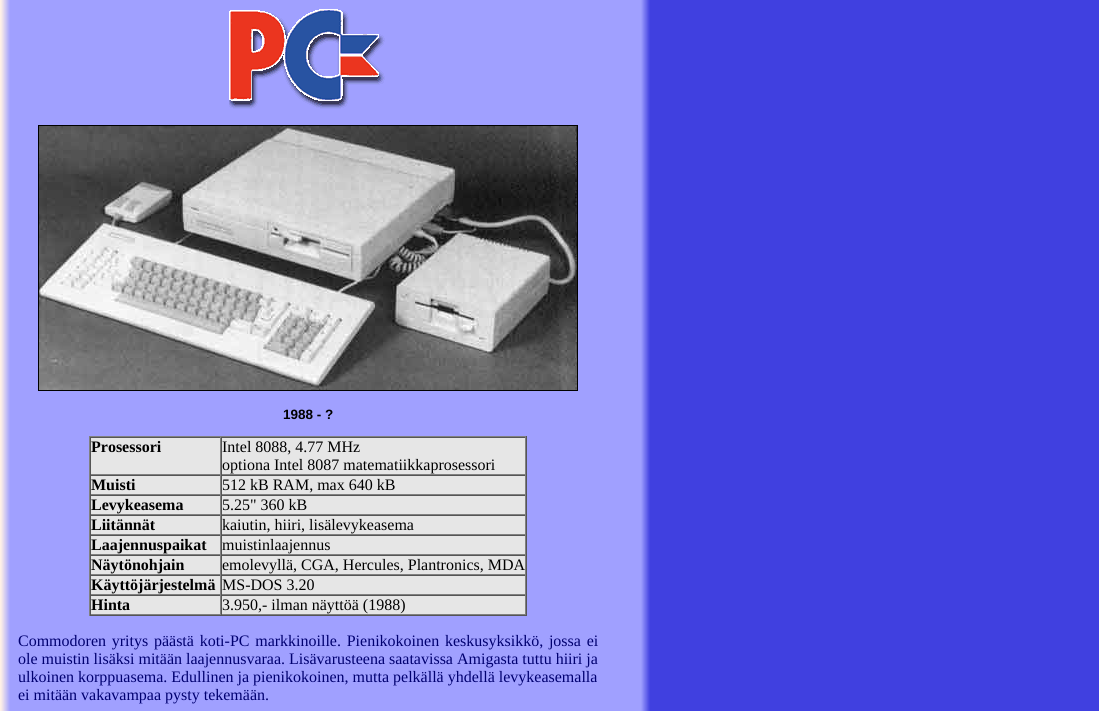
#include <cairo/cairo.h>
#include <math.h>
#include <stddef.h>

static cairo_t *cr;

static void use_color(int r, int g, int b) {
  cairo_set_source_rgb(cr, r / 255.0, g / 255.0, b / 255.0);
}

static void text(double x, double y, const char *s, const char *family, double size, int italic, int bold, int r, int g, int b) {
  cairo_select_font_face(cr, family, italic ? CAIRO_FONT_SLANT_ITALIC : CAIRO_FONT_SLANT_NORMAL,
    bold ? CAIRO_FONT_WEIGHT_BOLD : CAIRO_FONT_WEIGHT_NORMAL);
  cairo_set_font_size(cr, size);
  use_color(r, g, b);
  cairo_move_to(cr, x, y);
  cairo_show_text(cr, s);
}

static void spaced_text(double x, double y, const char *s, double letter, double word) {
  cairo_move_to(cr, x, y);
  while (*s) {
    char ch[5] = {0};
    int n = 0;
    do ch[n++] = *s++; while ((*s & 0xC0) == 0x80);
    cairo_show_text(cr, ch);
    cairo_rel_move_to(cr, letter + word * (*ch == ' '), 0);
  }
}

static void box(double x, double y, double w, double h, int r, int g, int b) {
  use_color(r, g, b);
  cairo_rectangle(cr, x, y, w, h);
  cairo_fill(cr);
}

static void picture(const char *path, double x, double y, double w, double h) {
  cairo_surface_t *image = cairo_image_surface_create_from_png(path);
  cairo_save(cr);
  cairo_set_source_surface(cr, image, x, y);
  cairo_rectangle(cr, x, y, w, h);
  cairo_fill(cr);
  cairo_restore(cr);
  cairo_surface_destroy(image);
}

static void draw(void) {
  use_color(64, 64, 224);
  cairo_paint(cr);
  picture("img_01.png", 0, 0, 650, 711);
  picture("img_02.png", 229, 9, 156, 100);
  cairo_rectangle(cr, 38.5, 125.5, 539, 265);
  use_color(0, 0, 0);
  cairo_set_line_width(cr, 1);
  cairo_stroke(cr);
  picture("img_03.png", 39, 126, 538, 264);
  box(91, 438, 434, 176, 230, 230, 230);
  box(89, 436, 438, 1, 128, 128, 128);
  box(526, 436, 1, 180, 85, 85, 85);
  box(89, 615, 438, 1, 85, 85, 85);
  box(89, 436, 1, 180, 128, 128, 128);
  box(90, 437, 436, 1, 85, 85, 85);
  box(220, 437, 1, 38, 128, 128, 128);
  box(90, 474, 131, 1, 128, 128, 128);
  box(90, 437, 1, 38, 85, 85, 85);
  box(525, 437, 1, 38, 128, 128, 128);
  box(221, 474, 305, 1, 128, 128, 128);
  box(221, 437, 1, 38, 85, 85, 85);
  box(90, 475, 436, 1, 85, 85, 85);
  box(220, 475, 1, 20, 128, 128, 128);
  box(90, 494, 131, 1, 128, 128, 128);
  box(90, 475, 1, 20, 85, 85, 85);
  box(525, 475, 1, 20, 128, 128, 128);
  box(221, 494, 305, 1, 128, 128, 128);
  box(221, 475, 1, 20, 85, 85, 85);
  box(90, 495, 436, 1, 85, 85, 85);
  box(220, 495, 1, 20, 128, 128, 128);
  box(90, 514, 131, 1, 128, 128, 128);
  box(90, 495, 1, 20, 85, 85, 85);
  box(525, 495, 1, 20, 128, 128, 128);
  box(221, 514, 305, 1, 128, 128, 128);
  box(221, 495, 1, 20, 85, 85, 85);
  box(90, 515, 436, 1, 85, 85, 85);
  box(220, 515, 1, 20, 128, 128, 128);
  box(90, 534, 131, 1, 128, 128, 128);
  box(90, 515, 1, 20, 85, 85, 85);
  box(525, 515, 1, 20, 128, 128, 128);
  box(221, 534, 305, 1, 128, 128, 128);
  box(221, 515, 1, 20, 85, 85, 85);
  box(90, 535, 436, 1, 85, 85, 85);
  box(220, 535, 1, 20, 128, 128, 128);
  box(90, 554, 131, 1, 128, 128, 128);
  box(90, 535, 1, 20, 85, 85, 85);
  box(525, 535, 1, 20, 128, 128, 128);
  box(221, 554, 305, 1, 128, 128, 128);
  box(221, 535, 1, 20, 85, 85, 85);
  box(90, 555, 436, 1, 85, 85, 85);
  box(220, 555, 1, 20, 128, 128, 128);
  box(90, 574, 131, 1, 128, 128, 128);
  box(90, 555, 1, 20, 85, 85, 85);
  box(525, 555, 1, 20, 128, 128, 128);
  box(221, 574, 305, 1, 128, 128, 128);
  box(221, 555, 1, 20, 85, 85, 85);
  box(90, 575, 436, 1, 85, 85, 85);
  box(220, 575, 1, 20, 128, 128, 128);
  box(90, 594, 131, 1, 128, 128, 128);
  box(90, 575, 1, 20, 85, 85, 85);
  box(525, 575, 1, 20, 128, 128, 128);
  box(221, 594, 305, 1, 128, 128, 128);
  box(221, 575, 1, 20, 85, 85, 85);
  box(90, 595, 436, 1, 85, 85, 85);
  box(220, 595, 1, 20, 128, 128, 128);
  box(90, 614, 131, 1, 128, 128, 128);
  box(90, 595, 1, 20, 85, 85, 85);
  box(525, 595, 1, 20, 128, 128, 128);
  box(221, 614, 305, 1, 128, 128, 128);
  box(221, 595, 1, 20, 85, 85, 85);
  text(283, 419, "1988 - ?", "Liberation Sans", 13.5, 0, 1, 0, 0, 0);
  text(91, 452, "Prosessori", "Liberation Serif", 16, 0, 1, 0, 0, 0);
  text(222, 452, "Intel 8088, 4.77 MHz", "Liberation Serif", 16, 0, 0, 0, 0, 0);
  text(222, 470, "optiona Intel 8087 matematiikkaprosessori", "Liberation Serif", 16, 0, 0, 0, 0, 0);
  text(91, 490, "Muisti", "Liberation Serif", 16, 0, 1, 0, 0, 0);
  text(222, 490, "512 kB RAM, max 640 kB", "Liberation Serif", 16, 0, 0, 0, 0, 0);
  text(91, 510, "Levykeasema", "Liberation Serif", 16, 0, 1, 0, 0, 0);
  text(222, 510, "5.25\" 360 kB", "Liberation Serif", 16, 0, 0, 0, 0, 0);
  text(91, 530, "Liitännät", "Liberation Serif", 16, 0, 1, 0, 0, 0);
  text(222, 530, "kaiutin, hiiri, lisälevykeasema", "Liberation Serif", 16, 0, 0, 0, 0, 0);
  text(91, 550, "Laajennuspaikat", "Liberation Serif", 16, 0, 1, 0, 0, 0);
  text(222, 550, "muistinlaajennus", "Liberation Serif", 16, 0, 0, 0, 0, 0);
  text(91, 570, "Näytönohjain", "Liberation Serif", 16, 0, 1, 0, 0, 0);
  text(222, 570, "emolevyllä, CGA, Hercules, Plantronics, MDA", "Liberation Serif", 16, 0, 0, 0, 0, 0);
  text(91, 590, "Käyttöjärjestelmä", "Liberation Serif", 16, 0, 1, 0, 0, 0);
  text(222, 590, "MS-DOS 3.20", "Liberation Serif", 16, 0, 0, 0, 0, 0);
  text(91, 610, "Hinta", "Liberation Serif", 16, 0, 1, 0, 0, 0);
  text(222, 610, "3.950,- ilman näyttöä (1988)", "Liberation Serif", 16, 0, 0, 0, 0, 0);
  use_color(0, 0, 112);
  spaced_text(18, 646, "Commodoren yritys päästä koti-PC markkinoille. Pienikokoinen keskusyksikkö, jossa ei", 0, 1.75);
  text(18, 664, "ole muistin lisäksi mitään laajennusvaraa. Lisävarusteena saatavissa Amigasta tuttu hiiri ja", "Liberation Serif", 16, 0, 0, 0, 0, 112);
  text(18, 682, "ulkoinen korppuasema. Edullinen ja pienikokoinen, mutta pelkällä yhdellä levykeasemalla", "Liberation Serif", 16, 0, 0, 0, 0, 112);
  text(18, 700, "ei mitään vakavampaa pysty tekemään.", "Liberation Serif", 16, 0, 0, 0, 0, 112);
}

int main(void) {
  cairo_surface_t *surface = cairo_image_surface_create(CAIRO_FORMAT_RGB24, 1099, 711);
  cr = cairo_create(surface);
  cairo_font_options_t *options = cairo_font_options_create();
  cairo_font_options_set_hint_metrics(options, CAIRO_HINT_METRICS_OFF);
  cairo_font_options_set_hint_style(options, CAIRO_HINT_STYLE_NONE);
  cairo_set_font_options(cr, options);
  cairo_set_miter_limit(cr, 4);
  draw();
  cairo_surface_write_to_png(surface, "out.png");
  cairo_font_options_destroy(options);
  cairo_destroy(cr);
  cairo_surface_destroy(surface);
  return 0;
}
